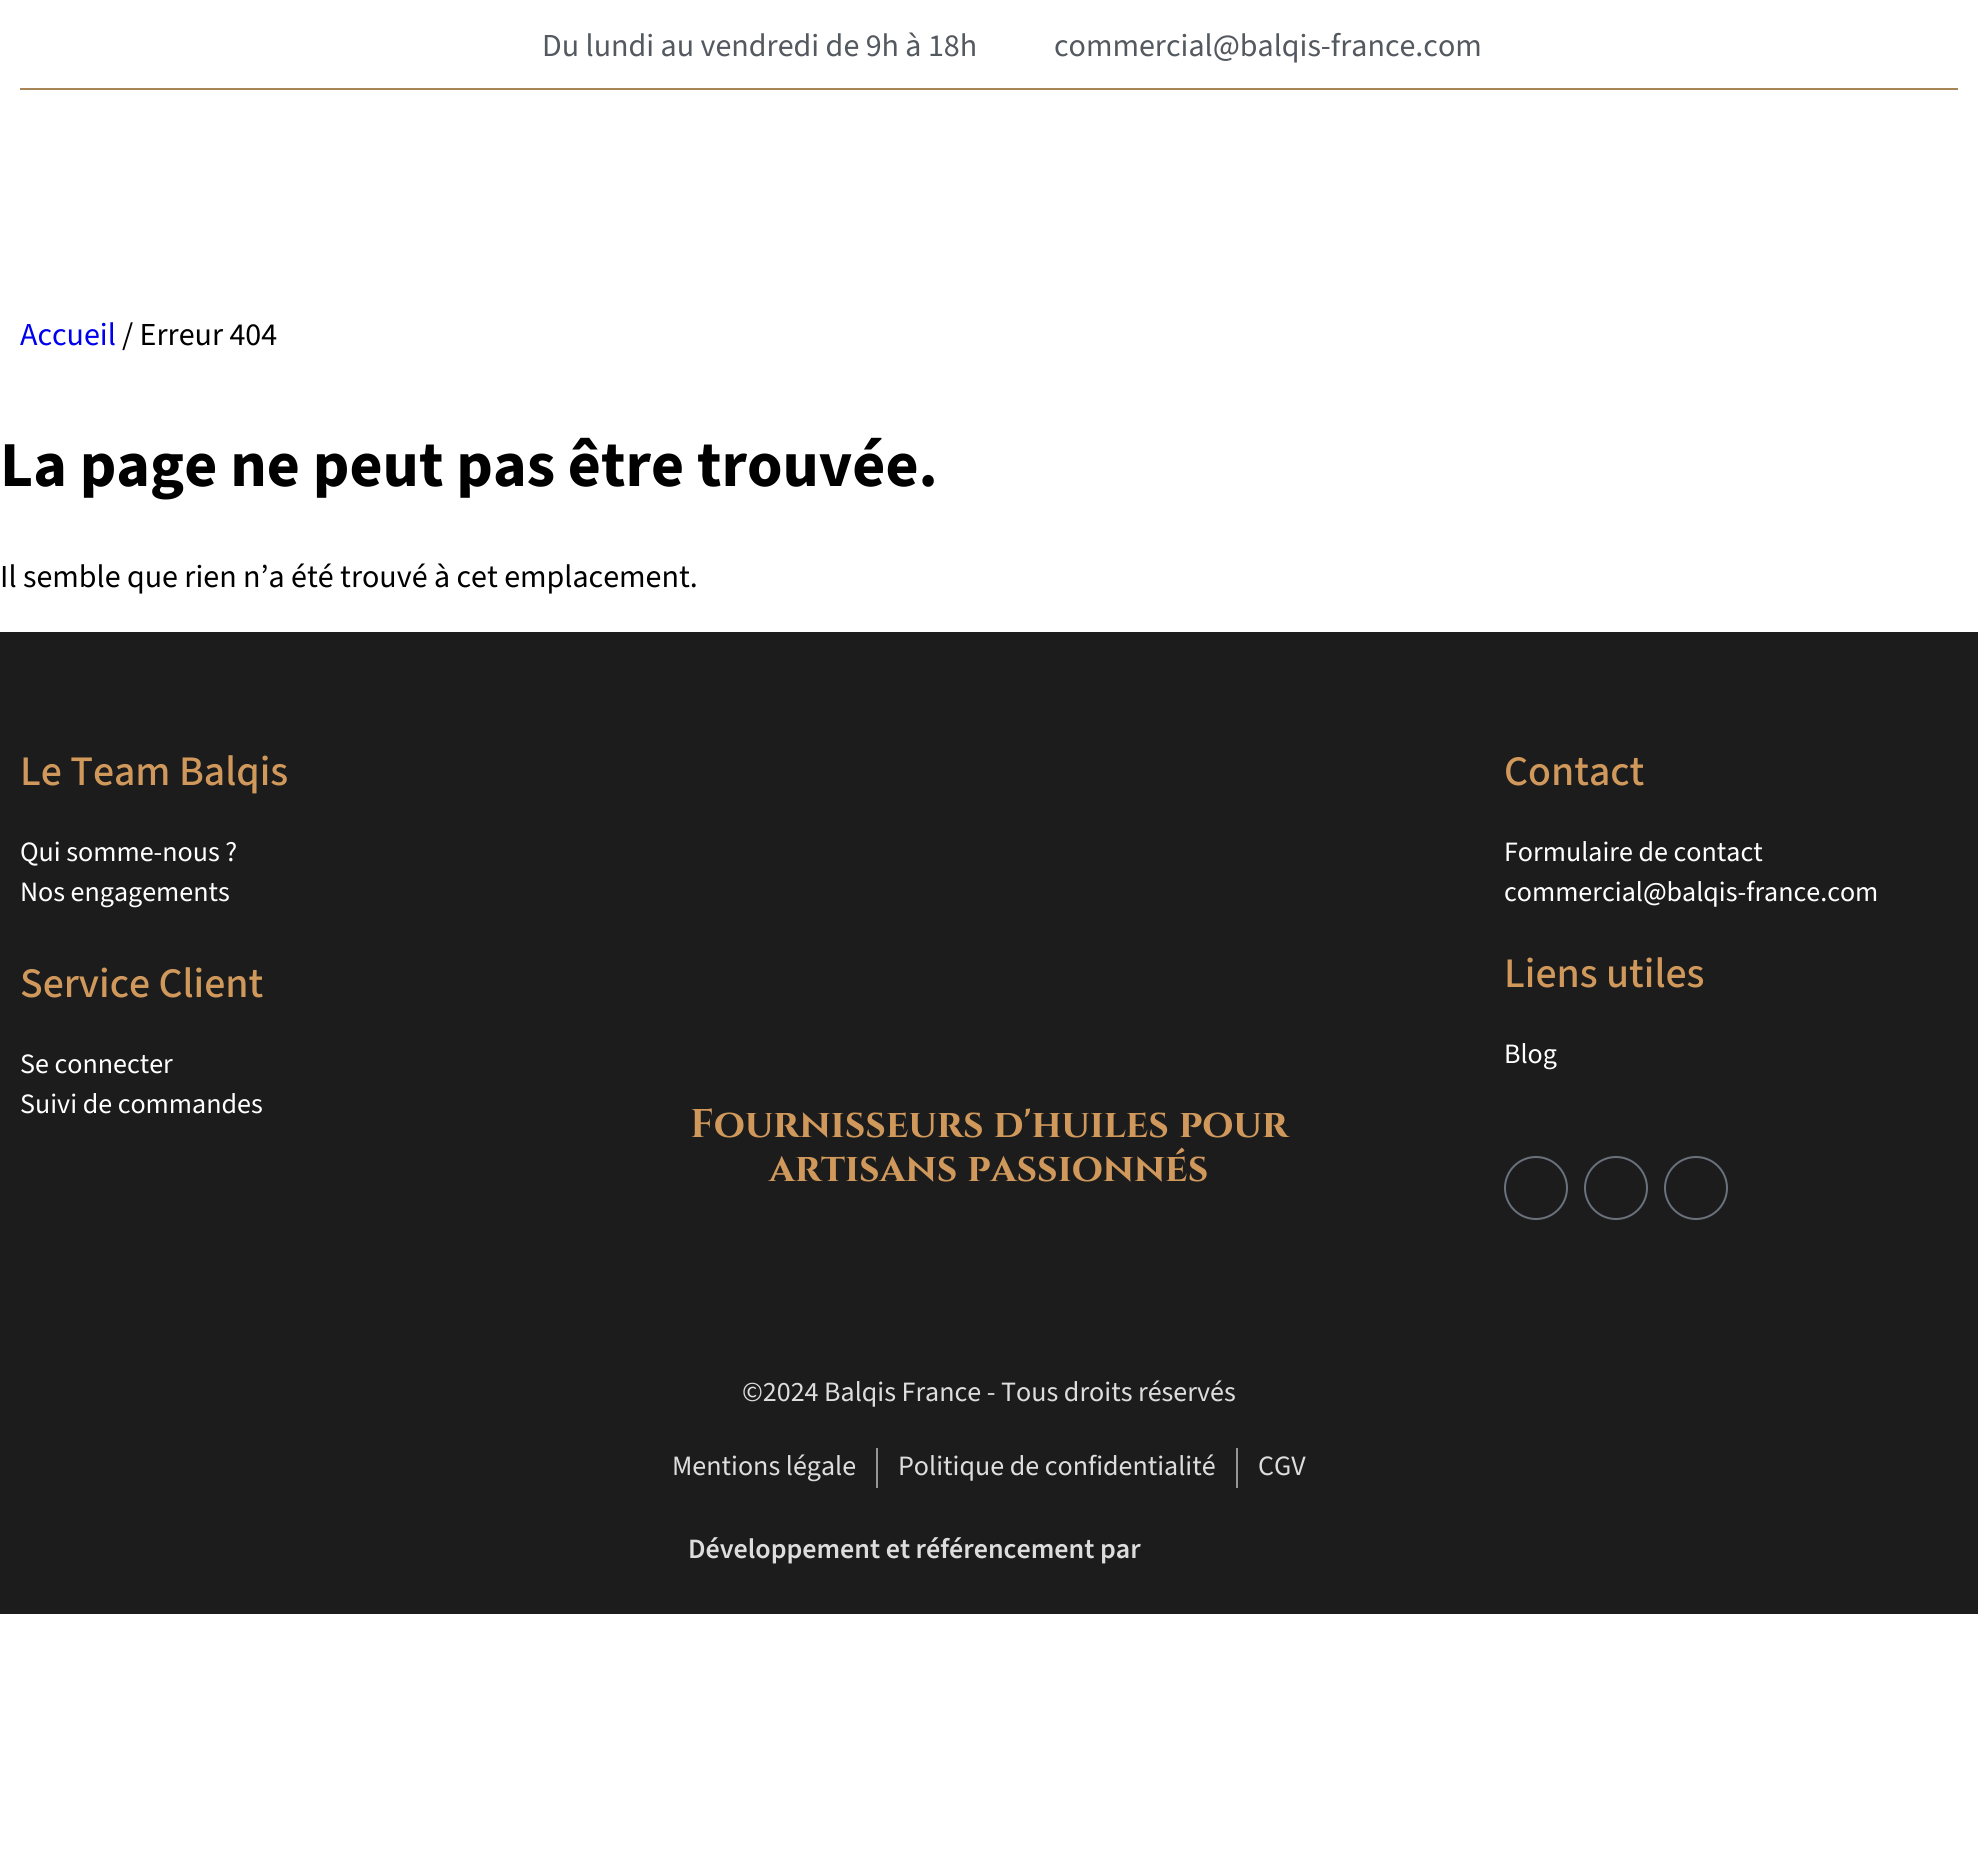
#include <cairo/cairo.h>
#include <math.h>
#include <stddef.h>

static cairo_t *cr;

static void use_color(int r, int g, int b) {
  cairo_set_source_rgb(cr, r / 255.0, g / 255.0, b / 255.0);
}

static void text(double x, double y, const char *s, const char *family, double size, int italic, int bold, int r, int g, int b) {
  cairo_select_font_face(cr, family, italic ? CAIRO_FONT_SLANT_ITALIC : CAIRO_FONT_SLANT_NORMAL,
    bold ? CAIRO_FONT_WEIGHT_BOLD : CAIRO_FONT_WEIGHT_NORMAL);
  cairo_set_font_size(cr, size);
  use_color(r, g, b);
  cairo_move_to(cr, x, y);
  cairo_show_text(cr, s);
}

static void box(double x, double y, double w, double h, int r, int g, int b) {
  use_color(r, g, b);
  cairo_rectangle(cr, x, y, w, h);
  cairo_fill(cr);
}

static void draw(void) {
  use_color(255, 255, 255);
  cairo_paint(cr);
  box(20, 88, 1938, 2, 168, 133, 87);
  box(0, 632, 1978, 982, 28, 28, 28);
  cairo_arc(cr, 1536, 1188, 31, 0, 2 * M_PI);
  use_color(105, 114, 125);
  cairo_stroke(cr);
  cairo_arc(cr, 1616, 1188, 31, 0, 2 * M_PI);
  cairo_stroke(cr);
  cairo_arc(cr, 1696, 1188, 31, 0, 2 * M_PI);
  cairo_stroke(cr);
  box(876, 1448, 2, 40, 150, 150, 150);
  box(1236, 1448, 2, 40, 150, 150, 150);
  text(542, 56, "Du lundi au vendredi de 9h à 18h", "Source Sans 3", 32, 0, 0, 84, 89, 95);
  text(1054, 56, "commercial@balqis-france.com", "Source Sans 3", 32, 0, 0, 84, 89, 95);
  text(20, 345, "Accueil", "Source Sans 3", 32, 0, 0, 0, 0, 238);
  text(122, 345, "/ Erreur 404", "Source Sans 3", 32, 0, 0, 0, 0, 0);
  text(0, 486, "La page ne peut pas être trouvée.", "Source Sans 3", 64, 0, 1, 0, 0, 0);
  text(0, 587, "Il semble que rien n’a été trouvé à cet emplacement.", "Source Sans 3", 32, 0, 0, 0, 0, 0);
  text(20, 785, "Le Team Balqis", "Source Sans 3 Medium", 42, 0, 0, 208, 153, 91);
  text(20, 861, "Qui somme-nous ?", "Source Sans 3", 28, 0, 0, 255, 255, 255);
  text(20, 901, "Nos engagements", "Source Sans 3", 28, 0, 0, 255, 255, 255);
  text(20, 997, "Service Client", "Source Sans 3 Medium", 42, 0, 0, 208, 153, 91);
  text(20, 1073, "Se connecter", "Source Sans 3", 28, 0, 0, 255, 255, 255);
  text(20, 1113, "Suivi de commandes", "Source Sans 3", 28, 0, 0, 255, 255, 255);
  text(1504, 785, "Contact", "Source Sans 3 Medium", 42, 0, 0, 208, 153, 91);
  text(1504, 861, "Formulaire de contact", "Source Sans 3", 28, 0, 0, 255, 255, 255);
  text(1504, 901, "commercial@balqis-france.com", "Source Sans 3", 28, 0, 0, 255, 255, 255);
  text(1504, 987, "Liens utiles", "Source Sans 3 Medium", 42, 0, 0, 208, 153, 91);
  text(1504, 1063, "Blog", "Source Sans 3", 28, 0, 0, 255, 255, 255);
  text(690, 1137, "Fournisseurs d'huiles pour", "Cinzel", 40, 0, 1, 208, 153, 91);
  text(769, 1181, "artisans passionnés", "Cinzel", 40, 0, 1, 208, 153, 91);
  text(742, 1401, "©2024 Balqis France - Tous droits réservés", "Source Sans 3", 28, 0, 0, 221, 221, 221);
  text(672, 1475, "Mentions légale", "Source Sans 3", 28, 0, 0, 221, 221, 221);
  text(898, 1475, "Politique de confidentialité", "Source Sans 3", 28, 0, 0, 221, 221, 221);
  text(1258, 1475, "CGV", "Source Sans 3", 28, 0, 0, 221, 221, 221);
  text(688, 1558, "Développement et référencement par", "Source Sans 3 SemiBold", 28, 0, 0, 221, 221, 221);
}

int main(void) {
  cairo_surface_t *surface = cairo_image_surface_create(CAIRO_FORMAT_RGB24, 1978, 1867);
  cr = cairo_create(surface);
  cairo_font_options_t *options = cairo_font_options_create();
  cairo_font_options_set_hint_metrics(options, CAIRO_HINT_METRICS_OFF);
  cairo_font_options_set_hint_style(options, CAIRO_HINT_STYLE_NONE);
  cairo_set_font_options(cr, options);
  cairo_set_miter_limit(cr, 4);
  draw();
  cairo_surface_write_to_png(surface, "out.png");
  cairo_font_options_destroy(options);
  cairo_destroy(cr);
  cairo_surface_destroy(surface);
  return 0;
}
